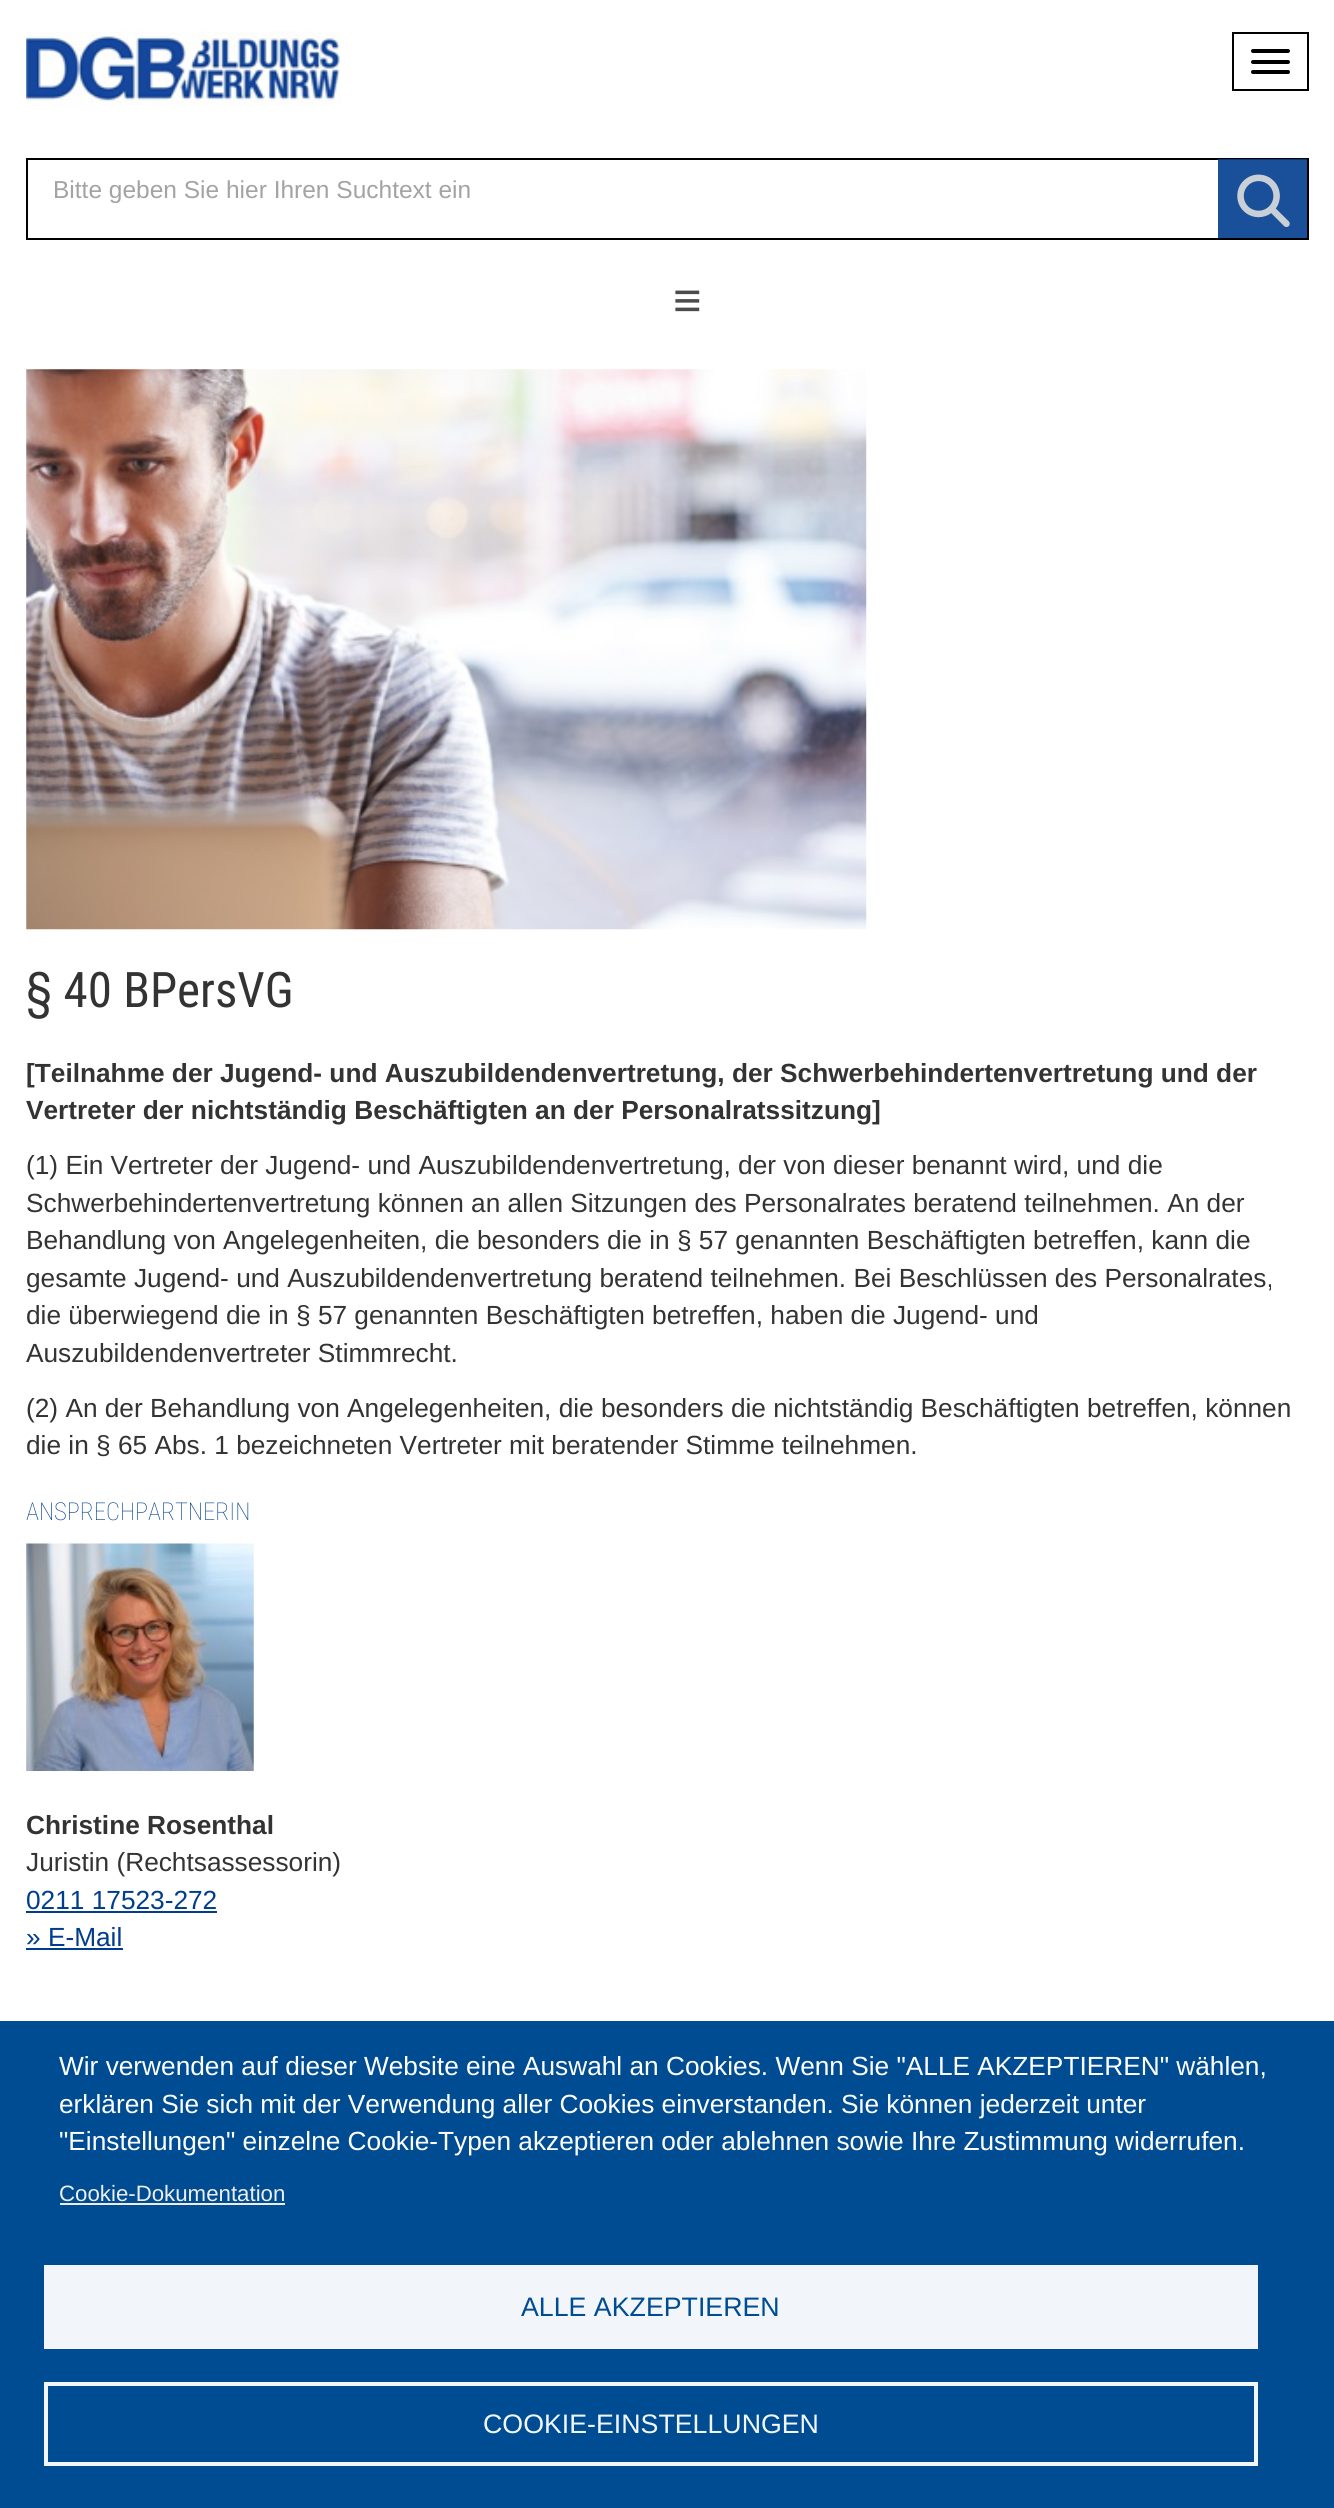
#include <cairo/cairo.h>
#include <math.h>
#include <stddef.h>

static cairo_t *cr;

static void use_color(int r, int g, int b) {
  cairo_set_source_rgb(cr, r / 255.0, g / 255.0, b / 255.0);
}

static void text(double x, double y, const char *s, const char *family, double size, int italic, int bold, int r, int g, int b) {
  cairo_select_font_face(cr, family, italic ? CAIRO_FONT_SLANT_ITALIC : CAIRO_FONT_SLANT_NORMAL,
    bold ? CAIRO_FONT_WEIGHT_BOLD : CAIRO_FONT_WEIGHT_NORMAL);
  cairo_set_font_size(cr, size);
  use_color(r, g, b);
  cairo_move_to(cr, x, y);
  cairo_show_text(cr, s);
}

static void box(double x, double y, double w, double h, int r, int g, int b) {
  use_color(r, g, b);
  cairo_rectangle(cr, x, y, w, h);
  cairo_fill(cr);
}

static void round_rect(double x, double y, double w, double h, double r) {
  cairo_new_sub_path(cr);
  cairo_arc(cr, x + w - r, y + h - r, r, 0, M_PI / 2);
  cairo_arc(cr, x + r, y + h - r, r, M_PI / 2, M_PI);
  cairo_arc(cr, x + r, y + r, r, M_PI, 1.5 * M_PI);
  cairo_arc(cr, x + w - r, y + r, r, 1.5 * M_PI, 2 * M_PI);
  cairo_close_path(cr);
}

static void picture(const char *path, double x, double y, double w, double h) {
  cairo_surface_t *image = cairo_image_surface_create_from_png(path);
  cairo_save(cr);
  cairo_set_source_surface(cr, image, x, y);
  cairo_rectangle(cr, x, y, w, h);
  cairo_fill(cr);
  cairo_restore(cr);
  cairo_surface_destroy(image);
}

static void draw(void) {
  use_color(255, 255, 255);
  cairo_paint(cr);
  picture("img_01.png", 26, 31, 315, 75);
  cairo_rectangle(cr, 1233, 33, 75, 57);
  use_color(0, 0, 0);
  cairo_stroke(cr);
  round_rect(1251, 49, 39, 4, 2);
  cairo_fill(cr);
  round_rect(1251, 60, 39, 4, 2);
  cairo_fill(cr);
  round_rect(1251, 70, 39, 4, 2);
  cairo_fill(cr);
  cairo_rectangle(cr, 27, 159, 1281, 80);
  cairo_stroke(cr);
  cairo_set_source_rgba(cr, 0, 0.239, 0.557, 0.9);
  cairo_rectangle(cr, 1218, 159, 89, 79);
  cairo_fill(cr);
  picture("img_02.png", 1237, 174, 53, 53);
  picture("img_03.png", 26, 369, 841, 561);
  box(0, 2021, 1334, 487, 0, 76, 147);
  box(60, 2203, 225, 2, 238, 238, 238);
  box(44, 2265, 1214, 84, 242, 246, 250);
  cairo_rectangle(cr, 46, 2384, 1210, 80);
  cairo_set_line_width(cr, 4);
  cairo_stroke(cr);
  picture("img_04.png", 26, 1543, 228, 228);
  box(26, 1911, 191, 2, 0, 61, 142);
  box(26, 1948, 97, 2, 0, 61, 142);
  text(53, 198, "Bitte geben Sie hier Ihren Suchtext ein", "Liberation Sans", 24.5, 0, 0, 163, 163, 163);
  text(673, 317, "≡", "Liberation Sans", 49, 0, 1, 76, 76, 76);
  text(26, 1007, "§ 40 BPersVG", "Roboto Condensed", 49, 0, 0, 51, 51, 51);
  text(26, 1082, "[Teilnahme der Jugend- und Auszubildendenvertretung, der Schwerbehindertenvertretung und der", "Liberation Sans", 26.25, 0, 1, 51, 51, 51);
  text(26, 1119, "Vertreter der nichtständig Beschäftigten an der Personalratssitzung]", "Liberation Sans", 26.25, 0, 1, 51, 51, 51);
  text(26, 1174, "(1) Ein Vertreter der Jugend- und Auszubildendenvertretung, der von dieser benannt wird, und die", "Liberation Sans", 26.25, 0, 0, 51, 51, 51);
  text(26, 1212, "Schwerbehindertenvertretung können an allen Sitzungen des Personalrates beratend teilnehmen. An der", "Liberation Sans", 26.25, 0, 0, 51, 51, 51);
  text(26, 1249, "Behandlung von Angelegenheiten, die besonders die in § 57 genannten Beschäftigten betreffen, kann die", "Liberation Sans", 26.25, 0, 0, 51, 51, 51);
  text(26, 1287, "gesamte Jugend- und Auszubildendenvertretung beratend teilnehmen. Bei Beschlüssen des Personalrates,", "Liberation Sans", 26.25, 0, 0, 51, 51, 51);
  text(26, 1324, "die überwiegend die in § 57 genannten Beschäftigten betreffen, haben die Jugend- und", "Liberation Sans", 26.25, 0, 0, 51, 51, 51);
  text(26, 1362, "Auszubildendenvertreter Stimmrecht.", "Liberation Sans", 26.25, 0, 0, 51, 51, 51);
  text(26, 1417, "(2) An der Behandlung von Angelegenheiten, die besonders die nichtständig Beschäftigten betreffen, können", "Liberation Sans", 26.25, 0, 0, 51, 51, 51);
  text(26, 1454, "die in § 65 Abs. 1 bezeichneten Vertreter mit beratender Stimme teilnehmen.", "Liberation Sans", 26.25, 0, 0, 51, 51, 51);
  text(59, 2075, "Wir verwenden auf dieser Website eine Auswahl an Cookies. Wenn Sie \"ALLE AKZEPTIEREN\" wählen,", "Liberation Sans", 26.25, 0, 0, 255, 255, 255);
  text(59, 2113, "erklären Sie sich mit der Verwendung aller Cookies einverstanden. Sie können jederzeit unter", "Liberation Sans", 26.25, 0, 0, 255, 255, 255);
  text(59, 2150, "\"Einstellungen\" einzelne Cookie-Typen akzeptieren oder ablehnen sowie Ihre Zustimmung widerrufen.", "Liberation Sans", 26.25, 0, 0, 255, 255, 255);
  text(59, 2201, "Cookie-Dokumentation", "Liberation Sans", 22.25, 0, 0, 238, 238, 238);
  text(521, 2316, "ALLE AKZEPTIEREN", "Liberation Sans", 26.75, 0, 0, 0, 76, 147);
  text(483, 2433, "COOKIE-EINSTELLUNGEN", "Liberation Sans", 26.75, 0, 0, 242, 246, 250);
  text(26, 1520, "ANSPRECHPARTNERIN", "Roboto Condensed Thin", 24.5, 0, 0, 0, 61, 142);
  text(26, 1834, "Christine Rosenthal", "Liberation Sans", 26.25, 0, 1, 51, 51, 51);
  text(26, 1871, "Juristin (Rechtsassessorin)", "Liberation Sans", 26.25, 0, 0, 51, 51, 51);
  text(26, 1909, "0211 17523-272", "Liberation Sans", 26.25, 0, 0, 0, 61, 142);
  text(26, 1946, "» E-Mail", "Liberation Sans", 26.25, 0, 0, 0, 61, 142);
}

int main(void) {
  cairo_surface_t *surface = cairo_image_surface_create(CAIRO_FORMAT_RGB24, 1334, 2508);
  cr = cairo_create(surface);
  cairo_font_options_t *options = cairo_font_options_create();
  cairo_font_options_set_hint_metrics(options, CAIRO_HINT_METRICS_OFF);
  cairo_font_options_set_hint_style(options, CAIRO_HINT_STYLE_NONE);
  cairo_set_font_options(cr, options);
  cairo_set_miter_limit(cr, 4);
  draw();
  cairo_surface_write_to_png(surface, "out.png");
  cairo_font_options_destroy(options);
  cairo_destroy(cr);
  cairo_surface_destroy(surface);
  return 0;
}
